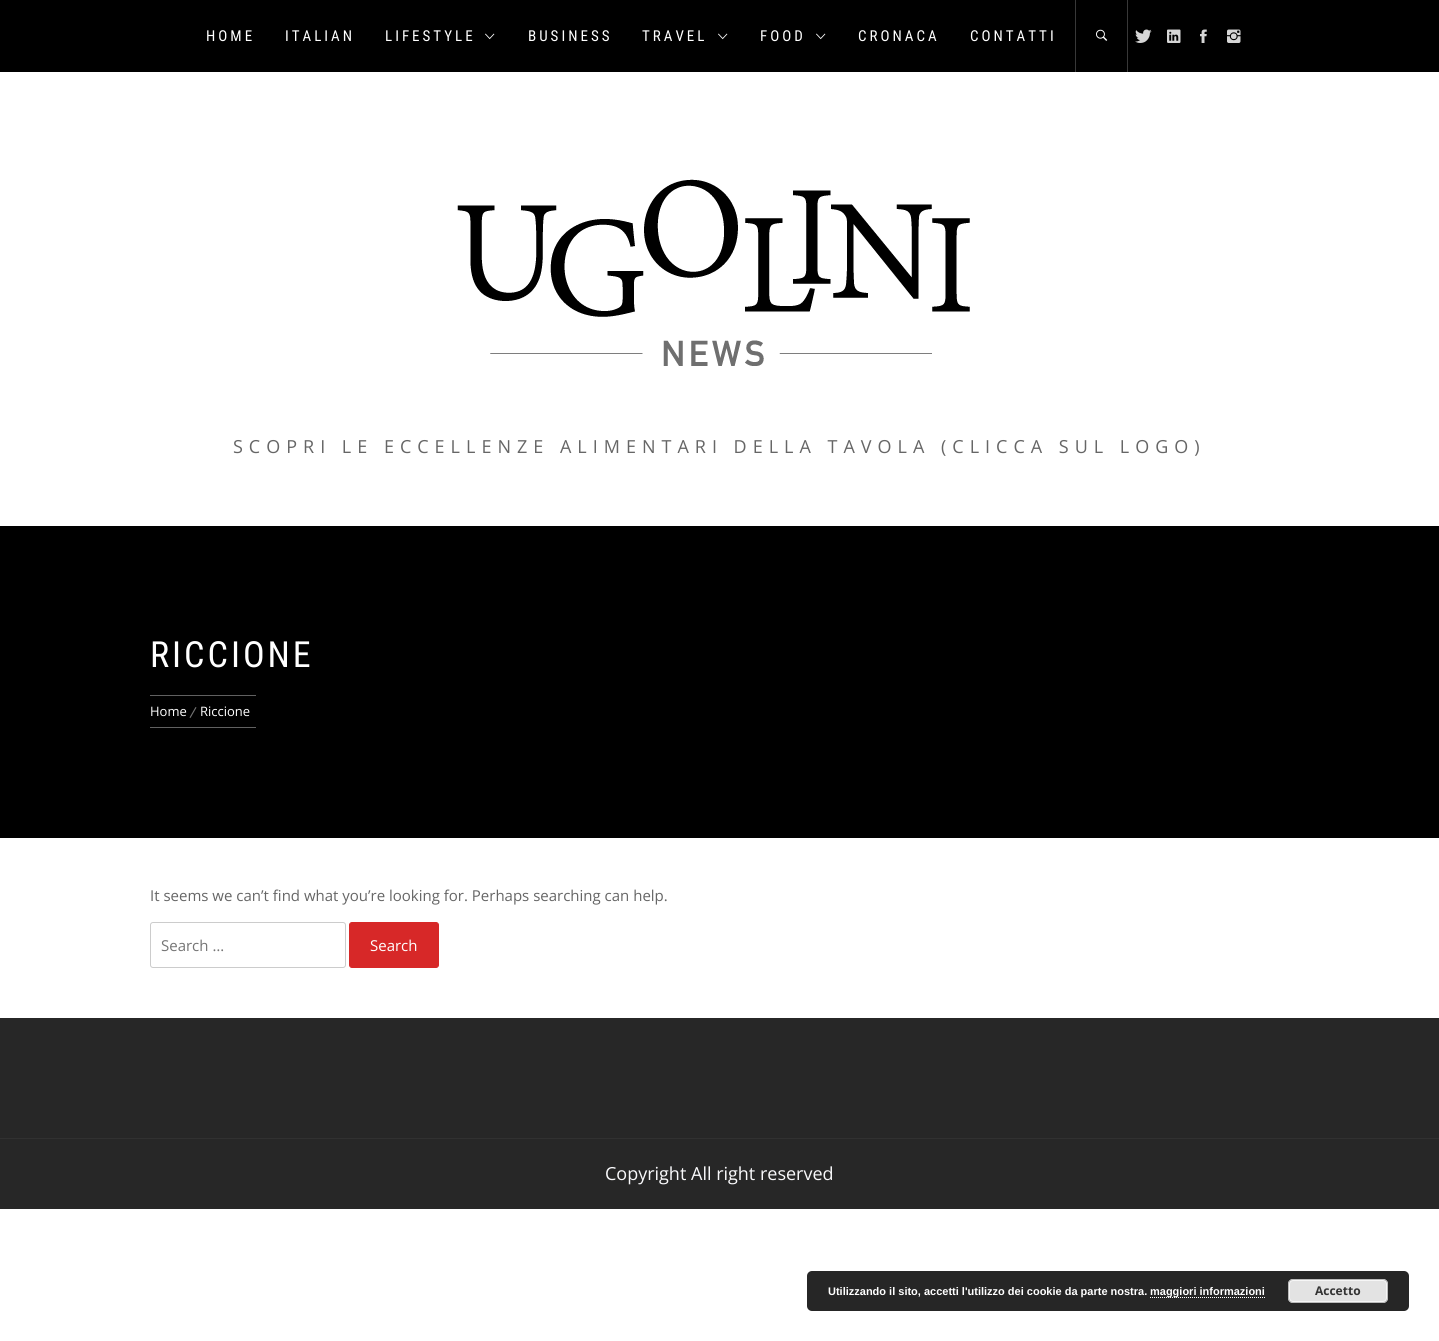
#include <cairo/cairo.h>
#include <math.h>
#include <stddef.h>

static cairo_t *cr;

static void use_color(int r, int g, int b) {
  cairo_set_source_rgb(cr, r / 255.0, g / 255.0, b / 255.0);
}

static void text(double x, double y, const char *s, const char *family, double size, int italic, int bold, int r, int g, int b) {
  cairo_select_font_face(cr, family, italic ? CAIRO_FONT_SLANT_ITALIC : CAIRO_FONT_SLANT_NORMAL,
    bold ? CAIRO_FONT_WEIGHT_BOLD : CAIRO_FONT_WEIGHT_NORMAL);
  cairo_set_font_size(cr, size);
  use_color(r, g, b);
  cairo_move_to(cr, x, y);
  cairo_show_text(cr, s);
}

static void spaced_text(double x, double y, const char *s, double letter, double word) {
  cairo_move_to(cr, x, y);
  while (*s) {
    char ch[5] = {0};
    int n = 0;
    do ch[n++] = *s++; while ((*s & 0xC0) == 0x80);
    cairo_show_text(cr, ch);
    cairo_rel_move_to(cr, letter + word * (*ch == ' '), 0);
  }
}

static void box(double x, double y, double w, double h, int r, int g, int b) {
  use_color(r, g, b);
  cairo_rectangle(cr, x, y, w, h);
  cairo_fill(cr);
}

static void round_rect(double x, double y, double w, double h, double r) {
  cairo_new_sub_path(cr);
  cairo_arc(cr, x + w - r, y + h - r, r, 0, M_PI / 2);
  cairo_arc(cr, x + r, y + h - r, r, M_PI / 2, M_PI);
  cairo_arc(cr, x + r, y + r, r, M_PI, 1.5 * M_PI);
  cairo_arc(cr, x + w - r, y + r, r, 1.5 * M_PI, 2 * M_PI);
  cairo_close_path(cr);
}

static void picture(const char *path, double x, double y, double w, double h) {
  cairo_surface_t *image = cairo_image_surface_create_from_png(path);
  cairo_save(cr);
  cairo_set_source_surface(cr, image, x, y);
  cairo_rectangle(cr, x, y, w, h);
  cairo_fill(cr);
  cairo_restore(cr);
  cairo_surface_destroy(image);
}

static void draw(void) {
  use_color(255, 255, 255);
  cairo_paint(cr);
  box(0, 0, 1439, 72, 0, 0, 0);
  picture("img_01.png", 485, 33, 10, 7);
  picture("img_01.png", 718, 33, 10, 7);
  picture("img_01.png", 816, 33, 10, 7);
  box(1127, 0, 1, 72, 56, 56, 56);
  box(1075, 0, 1, 72, 56, 56, 56);
  picture("img_02.png", 1096, 29, 12, 12);
  picture("img_03.png", 1135, 29, 17, 14);
  picture("img_04.png", 1167, 29, 14, 14);
  picture("img_05.png", 1200, 29, 7, 14);
  picture("img_06.png", 1227, 29, 14, 14);
  picture("img_07.png", 457, 179, 513, 187);
  box(0, 526, 1439, 312, 0, 0, 0);
  box(150, 695, 106, 1, 97, 97, 97);
  box(150, 727, 106, 1, 97, 97, 97);
  use_color(115, 115, 115);
  cairo_new_path(cr);
  cairo_move_to(cr, 195.5, 707);
  cairo_line_to(cr, 196.5, 707.5);
  cairo_line_to(cr, 190.5, 718);
  cairo_line_to(cr, 189.5, 717.5);
  cairo_close_path(cr);
  cairo_fill(cr);
  round_rect(150.5, 922.5, 195, 45, 2.5);
  use_color(204, 204, 204);
  cairo_set_line_width(cr, 1);
  cairo_stroke(cr);
  use_color(215, 40, 40);
  round_rect(349.5, 922.5, 89, 45, 2.5);
  cairo_fill_preserve(cr);
  cairo_stroke(cr);
  box(0, 1018, 1439, 191, 39, 39, 39);
  box(0, 1138, 1439, 1, 49, 49, 49);
  use_color(38, 38, 38);
  round_rect(807, 1271, 602, 40, 5);
  cairo_fill(cr);
  cairo_new_path(cr);
  cairo_move_to(cr, 1150, 1297.5);
  cairo_line_to(cr, 1265, 1297.5);
  use_color(255, 255, 255);
  cairo_set_dash(cr, (double[]){1, 1}, 2, 0);
  cairo_stroke(cr);
  use_color(227, 227, 227);
  round_rect(1288, 1279, 100, 24, 5);
  cairo_fill(cr);
  round_rect(1289.5, 1280.5, 97, 21, 3.5);
  use_color(246, 246, 246);
  cairo_set_dash(cr, NULL, 0, 0);
  cairo_stroke(cr);
  round_rect(1288.5, 1279.5, 99, 23, 4.5);
  use_color(187, 187, 187);
  cairo_stroke(cr);
  cairo_select_font_face(cr, "Roboto Condensed", CAIRO_FONT_SLANT_NORMAL, CAIRO_FONT_WEIGHT_NORMAL);
  cairo_set_font_size(cr, 15);
  use_color(255, 255, 255);
  spaced_text(206, 41, "HOME", 3, 0);
  spaced_text(285, 41, "ITALIAN", 3, 0);
  spaced_text(385, 41, "LIFESTYLE", 3, 0);
  spaced_text(528, 41, "BUSINESS", 3, 0);
  spaced_text(642, 41, "TRAVEL", 3, 0);
  spaced_text(760, 41, "FOOD", 3, 0);
  spaced_text(858, 41, "CRONACA", 3, 0);
  spaced_text(970, 41, "CONTATTI", 3, 0);
  cairo_select_font_face(cr, "Open Sans", CAIRO_FONT_SLANT_NORMAL, CAIRO_FONT_WEIGHT_NORMAL);
  cairo_set_font_size(cr, 18);
  use_color(102, 102, 102);
  spaced_text(233, 453, "SCOPRI LE ECCELLENZE ALIMENTARI DELLA TAVOLA (CLICCA SUL LOGO)", 6, 0);
  cairo_select_font_face(cr, "Roboto Condensed", CAIRO_FONT_SLANT_NORMAL, CAIRO_FONT_WEIGHT_NORMAL);
  cairo_set_font_size(cr, 36);
  use_color(255, 255, 255);
  spaced_text(150, 667, "RICCIONE", 3, 0);
  text(150, 716, "Home", "Open Sans", 13, 0, 0, 255, 255, 255);
  text(200, 716, "Riccione", "Open Sans", 13, 0, 0, 255, 255, 255);
  text(150, 901, "It seems we can’t find what you’re looking for. Perhaps searching can help.", "Open Sans", 15, 0, 0, 102, 102, 102);
  text(161, 951, "Search …", "Open Sans", 15, 0, 0, 117, 117, 117);
  text(370, 951, "Search", "Open Sans", 15, 0, 0, 255, 255, 255);
  text(605, 1180, "Copyright All right reserved", "Open Sans", 18, 0, 0, 249, 249, 251);
  text(828, 1295, "Utilizzando il sito, accetti l'utilizzo dei cookie da parte nostra.", "Liberation Sans", 11, 0, 1, 255, 255, 255);
  text(1150, 1295, "maggiori informazioni", "Liberation Sans", 11, 0, 1, 255, 255, 255);
  text(1315, 1295, "Accetto", "Open Sans", 12, 0, 1, 51, 51, 51);
}

int main(void) {
  cairo_surface_t *surface = cairo_image_surface_create(CAIRO_FORMAT_RGB24, 1439, 1341);
  cr = cairo_create(surface);
  cairo_font_options_t *options = cairo_font_options_create();
  cairo_font_options_set_hint_metrics(options, CAIRO_HINT_METRICS_OFF);
  cairo_font_options_set_hint_style(options, CAIRO_HINT_STYLE_NONE);
  cairo_set_font_options(cr, options);
  cairo_set_miter_limit(cr, 4);
  draw();
  cairo_surface_write_to_png(surface, "out.png");
  cairo_font_options_destroy(options);
  cairo_destroy(cr);
  cairo_surface_destroy(surface);
  return 0;
}
